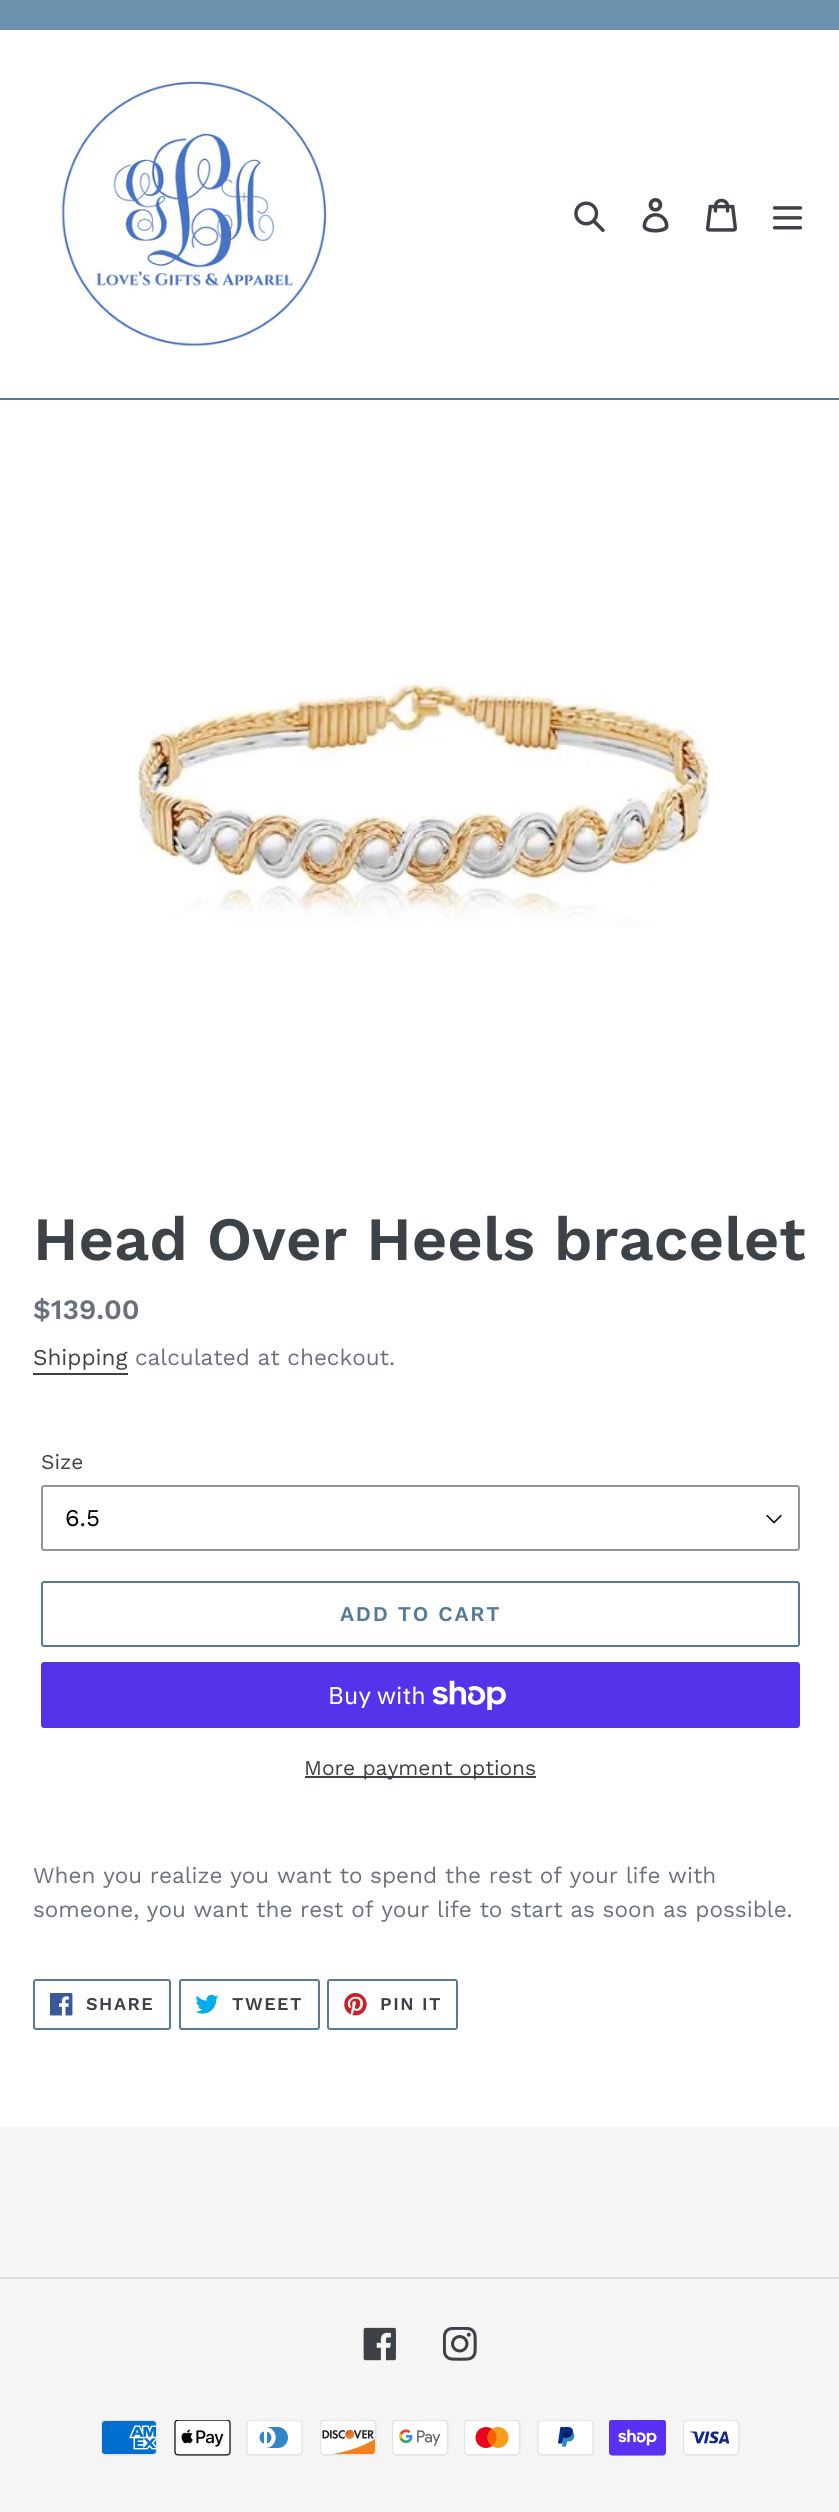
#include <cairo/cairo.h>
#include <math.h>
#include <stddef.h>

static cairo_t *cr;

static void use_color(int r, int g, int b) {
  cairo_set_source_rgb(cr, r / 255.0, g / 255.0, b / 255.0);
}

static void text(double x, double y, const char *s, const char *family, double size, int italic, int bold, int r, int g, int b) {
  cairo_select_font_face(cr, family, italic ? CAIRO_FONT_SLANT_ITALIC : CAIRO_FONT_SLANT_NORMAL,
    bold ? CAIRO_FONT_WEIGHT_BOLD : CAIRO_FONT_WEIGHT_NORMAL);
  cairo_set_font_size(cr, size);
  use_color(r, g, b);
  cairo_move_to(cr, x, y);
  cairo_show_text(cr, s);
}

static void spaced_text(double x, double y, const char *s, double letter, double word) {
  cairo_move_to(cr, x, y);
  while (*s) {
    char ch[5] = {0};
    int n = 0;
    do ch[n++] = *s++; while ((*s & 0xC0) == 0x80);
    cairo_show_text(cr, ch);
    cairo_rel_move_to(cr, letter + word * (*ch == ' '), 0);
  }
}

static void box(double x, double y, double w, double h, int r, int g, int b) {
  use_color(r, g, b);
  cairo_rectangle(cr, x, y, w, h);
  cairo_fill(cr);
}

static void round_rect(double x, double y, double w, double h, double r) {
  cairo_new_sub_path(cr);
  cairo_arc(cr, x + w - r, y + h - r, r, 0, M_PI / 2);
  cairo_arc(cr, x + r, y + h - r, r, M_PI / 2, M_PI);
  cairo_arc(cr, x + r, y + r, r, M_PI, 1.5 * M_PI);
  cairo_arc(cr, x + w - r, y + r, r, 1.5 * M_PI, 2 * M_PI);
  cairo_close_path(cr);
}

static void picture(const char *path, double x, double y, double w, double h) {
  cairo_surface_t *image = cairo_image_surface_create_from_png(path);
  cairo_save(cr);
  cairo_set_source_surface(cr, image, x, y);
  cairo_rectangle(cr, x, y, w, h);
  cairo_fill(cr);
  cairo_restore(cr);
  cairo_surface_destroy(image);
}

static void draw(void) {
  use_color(255, 255, 255);
  cairo_paint(cr);
  box(0, 0, 839, 30, 108, 145, 172);
  box(0, 398, 839, 2, 85, 123, 151);
  picture("img_01.png", 61, 80, 267, 267);
  picture("img_02.png", 574, 201, 31, 31);
  picture("img_03.png", 642, 198, 27, 35);
  picture("img_04.png", 705, 198, 32, 34);
  picture("img_05.png", 772, 206, 31, 24);
  picture("img_06.png", 136, 674, 576, 254);
  box(33, 1373, 95, 2, 61, 66, 70);
  picture("img_07.png", 766, 1514, 16, 10);
  round_rect(42, 1486, 757, 64, 2);
  use_color(148, 148, 148);
  cairo_stroke(cr);
  round_rect(42, 1582, 757, 64, 2);
  use_color(85, 123, 151);
  cairo_stroke(cr);
  use_color(84, 51, 235);
  round_rect(41, 1662, 759, 66, 3);
  cairo_fill(cr);
  picture("img_08.png", 432, 1680, 74, 30);
  box(305, 1776, 231, 2, 61, 66, 70);
  round_rect(34, 1980, 136, 49, 2);
  use_color(85, 123, 151);
  cairo_stroke(cr);
  picture("img_09.png", 50, 1993, 23, 23);
  round_rect(180, 1980, 139, 49, 2);
  cairo_stroke(cr);
  picture("img_10.png", 195, 1994, 24, 20);
  round_rect(328, 1980, 129, 49, 2);
  cairo_stroke(cr);
  picture("img_11.png", 344, 1993, 23, 23);
  box(0, 2127, 839, 385, 245, 245, 245);
  box(0, 2277, 839, 2, 220, 220, 220);
  picture("img_12.png", 363, 2327, 33, 34);
  picture("img_13.png", 443, 2327, 34, 34);
  picture("img_14.png", 101, 2420, 57, 36);
  picture("img_15.png", 174, 2420, 57, 36);
  picture("img_16.png", 246, 2420, 57, 36);
  picture("img_17.png", 320, 2420, 57, 36);
  picture("img_18.png", 392, 2420, 57, 36);
  picture("img_19.png", 464, 2420, 57, 36);
  picture("img_20.png", 537, 2420, 57, 36);
  picture("img_21.png", 609, 2420, 57, 36);
  picture("img_22.png", 683, 2420, 57, 36);
  text(33, 1260, "Head Over Heels bracelet", "Work Sans SemiBold", 61.5, 0, 0, 61, 66, 70);
  text(33, 1319, "$139.00", "Work Sans SemiBold", 28, 0, 0, 105, 114, 123);
  text(33, 1365, "Shipping", "Work Sans", 22.5, 0, 0, 61, 66, 70);
  text(135, 1365, "calculated at checkout.", "Work Sans", 22.5, 0, 0, 105, 114, 123);
  text(41, 1469, "Size", "Work Sans", 21, 0, 0, 61, 66, 70);
  text(65, 1526, "6.5", "Work Sans", 24, 0, 0, 0, 0, 0);
  cairo_select_font_face(cr, "Work Sans SemiBold", CAIRO_FONT_SLANT_NORMAL, CAIRO_FONT_WEIGHT_NORMAL);
  cairo_set_font_size(cr, 21);
  use_color(85, 123, 151);
  spaced_text(340, 1621, "ADD TO CART", 1.75, 0);
  text(328, 1704, "Buy with", "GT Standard", 24, 0, 0, 255, 255, 255);
  text(304, 1775, "More payment options", "Work Sans", 21, 0, 0, 61, 66, 70);
  text(33, 1883, "When you realize you want to spend the rest of your life with", "Work Sans", 22.5, 0, 0, 105, 114, 123);
  text(33, 1917, "someone, you want the rest of your life to start as soon as possible.", "Work Sans", 22.5, 0, 0, 105, 114, 123);
  cairo_select_font_face(cr, "Work Sans SemiBold", CAIRO_FONT_SLANT_NORMAL, CAIRO_FONT_WEIGHT_NORMAL);
  cairo_set_font_size(cr, 18);
  use_color(61, 66, 70);
  spaced_text(86, 2010, "SHARE", 1.5, 0);
  spaced_text(232, 2010, "TWEET", 1.5, 0);
  spaced_text(380, 2010, "PIN IT", 1.5, 0);
}

int main(void) {
  cairo_surface_t *surface = cairo_image_surface_create(CAIRO_FORMAT_RGB24, 839, 2512);
  cr = cairo_create(surface);
  cairo_font_options_t *options = cairo_font_options_create();
  cairo_font_options_set_hint_metrics(options, CAIRO_HINT_METRICS_OFF);
  cairo_font_options_set_hint_style(options, CAIRO_HINT_STYLE_NONE);
  cairo_set_font_options(cr, options);
  cairo_set_miter_limit(cr, 4);
  draw();
  cairo_surface_write_to_png(surface, "out.png");
  cairo_font_options_destroy(options);
  cairo_destroy(cr);
  cairo_surface_destroy(surface);
  return 0;
}
